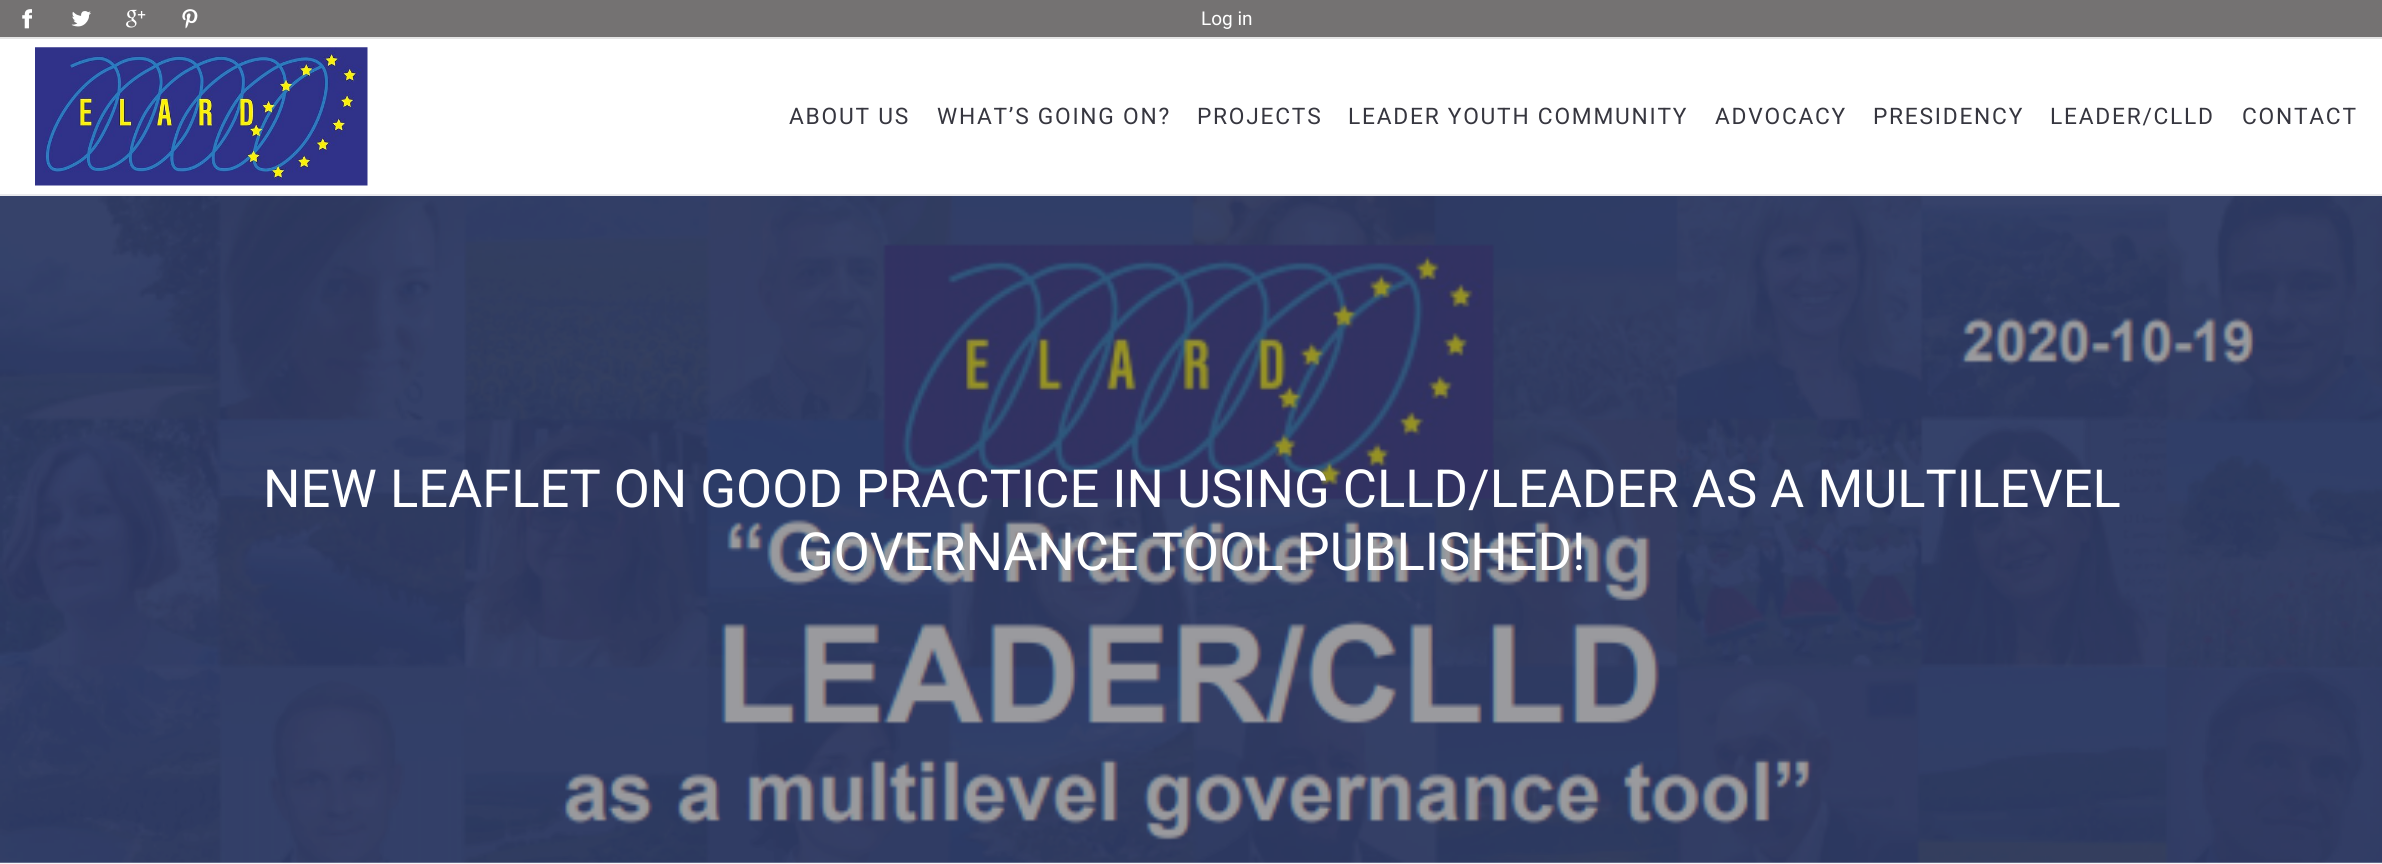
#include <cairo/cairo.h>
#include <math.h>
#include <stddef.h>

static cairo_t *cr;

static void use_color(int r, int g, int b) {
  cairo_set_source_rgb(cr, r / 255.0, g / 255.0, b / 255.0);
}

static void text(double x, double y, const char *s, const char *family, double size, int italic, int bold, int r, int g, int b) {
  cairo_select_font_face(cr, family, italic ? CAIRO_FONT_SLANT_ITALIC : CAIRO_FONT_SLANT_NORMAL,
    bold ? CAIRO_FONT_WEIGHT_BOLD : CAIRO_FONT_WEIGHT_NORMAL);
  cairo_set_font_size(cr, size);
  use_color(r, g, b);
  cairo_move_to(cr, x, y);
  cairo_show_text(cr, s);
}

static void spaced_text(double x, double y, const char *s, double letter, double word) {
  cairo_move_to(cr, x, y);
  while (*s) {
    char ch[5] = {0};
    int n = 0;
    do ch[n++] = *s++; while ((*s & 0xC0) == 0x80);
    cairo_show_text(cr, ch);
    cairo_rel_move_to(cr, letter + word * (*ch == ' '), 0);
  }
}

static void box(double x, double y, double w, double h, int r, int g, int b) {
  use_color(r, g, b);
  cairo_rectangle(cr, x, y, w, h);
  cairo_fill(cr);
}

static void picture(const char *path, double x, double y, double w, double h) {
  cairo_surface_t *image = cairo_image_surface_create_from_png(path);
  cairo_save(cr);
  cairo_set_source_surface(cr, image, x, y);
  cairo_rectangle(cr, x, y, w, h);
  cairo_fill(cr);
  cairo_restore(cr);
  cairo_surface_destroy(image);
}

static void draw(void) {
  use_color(246, 247, 249);
  cairo_paint(cr);
  box(0, 39, 2382, 155, 255, 255, 255);
  box(0, 0, 2382, 37, 116, 114, 114);
  box(0, 37, 2382, 2, 229, 229, 229);
  picture("img_01.png", 22, 9, 10, 20);
  picture("img_02.png", 71, 11, 20, 16);
  picture("img_03.png", 126, 9, 20, 19);
  picture("img_04.png", 182, 9, 16, 20);
  box(0, 194, 2382, 2, 233, 233, 237);
  picture("img_05.png", 35, 47, 333, 139);
  picture("img_06.png", 0, 196, 2382, 667);
  text(1201, 25, "Log in", "Roboto", 19, 0, 0, 255, 255, 255);
  cairo_set_font_size(cr, 22.75);
  use_color(54, 54, 63);
  spaced_text(789, 124, "ABOUT US", 1.75, 0);
  spaced_text(937, 124, "WHAT’S GOING ON?", 1.75, 0);
  spaced_text(1197, 124, "PROJECTS", 1.75, 0);
  spaced_text(1348, 124, "LEADER YOUTH COMMUNITY", 1.75, 0);
  spaced_text(1715, 124, "ADVOCACY", 1.75, 0);
  spaced_text(1873, 124, "PRESIDENCY", 1.75, 0);
  spaced_text(2050, 124, "LEADER/CLLD", 1.75, 0);
  spaced_text(2242, 124, "CONTACT", 1.75, 0);
  text(263, 507, "NEW LEAFLET ON GOOD PRACTICE IN USING CLLD/LEADER AS A MULTILEVEL", "Roboto", 52.5, 0, 0, 255, 255, 255);
  text(798, 570, "GOVERNANCE TOOL PUBLISHED!", "Roboto", 52.5, 0, 0, 255, 255, 255);
}

int main(void) {
  cairo_surface_t *surface = cairo_image_surface_create(CAIRO_FORMAT_RGB24, 2382, 864);
  cr = cairo_create(surface);
  cairo_font_options_t *options = cairo_font_options_create();
  cairo_font_options_set_hint_metrics(options, CAIRO_HINT_METRICS_OFF);
  cairo_font_options_set_hint_style(options, CAIRO_HINT_STYLE_NONE);
  cairo_set_font_options(cr, options);
  cairo_set_miter_limit(cr, 4);
  draw();
  cairo_surface_write_to_png(surface, "out.png");
  cairo_font_options_destroy(options);
  cairo_destroy(cr);
  cairo_surface_destroy(surface);
  return 0;
}
